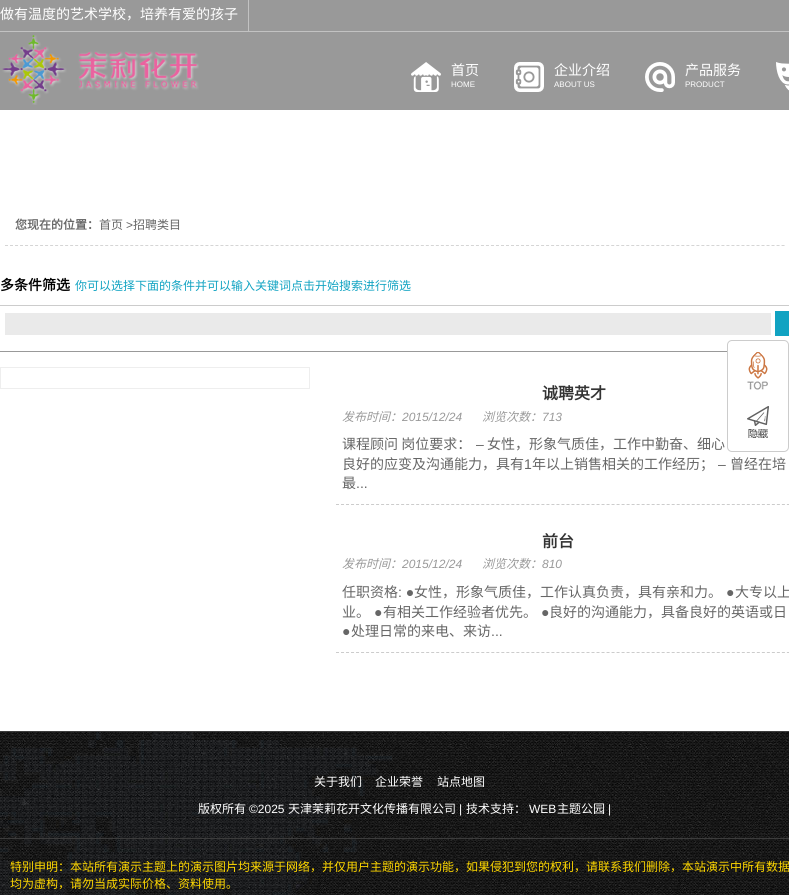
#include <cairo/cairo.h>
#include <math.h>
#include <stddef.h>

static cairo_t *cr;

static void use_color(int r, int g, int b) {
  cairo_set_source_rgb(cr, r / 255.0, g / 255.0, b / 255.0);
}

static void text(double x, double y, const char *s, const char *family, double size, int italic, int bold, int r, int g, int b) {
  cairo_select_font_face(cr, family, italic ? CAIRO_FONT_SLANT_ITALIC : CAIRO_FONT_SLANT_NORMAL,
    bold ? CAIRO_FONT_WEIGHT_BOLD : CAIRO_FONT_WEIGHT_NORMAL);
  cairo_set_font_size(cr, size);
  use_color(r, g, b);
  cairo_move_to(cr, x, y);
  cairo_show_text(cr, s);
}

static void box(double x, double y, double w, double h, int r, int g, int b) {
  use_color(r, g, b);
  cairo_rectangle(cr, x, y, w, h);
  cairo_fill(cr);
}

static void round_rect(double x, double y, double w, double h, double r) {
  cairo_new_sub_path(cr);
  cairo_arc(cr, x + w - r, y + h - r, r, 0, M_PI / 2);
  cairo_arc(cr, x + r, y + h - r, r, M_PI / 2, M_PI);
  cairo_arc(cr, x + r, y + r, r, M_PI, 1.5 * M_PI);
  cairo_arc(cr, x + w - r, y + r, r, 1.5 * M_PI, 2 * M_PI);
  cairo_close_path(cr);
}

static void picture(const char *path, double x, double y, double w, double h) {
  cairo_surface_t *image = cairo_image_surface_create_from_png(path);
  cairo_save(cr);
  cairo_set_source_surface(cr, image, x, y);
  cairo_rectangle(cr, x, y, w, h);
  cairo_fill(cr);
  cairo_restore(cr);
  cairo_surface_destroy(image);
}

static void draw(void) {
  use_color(255, 255, 255);
  cairo_paint(cr);
  box(0, 0, 789, 110, 153, 153, 153);
  box(248, 0, 1, 31, 194, 194, 194);
  box(0, 31, 789, 1, 194, 194, 194);
  picture("img_01.png", 2, 35, 197, 70);
  picture("img_02.png", 411, 62, 30, 30);
  picture("img_03.png", 514, 62, 30, 30);
  picture("img_04.png", 645, 62, 30, 30);
  picture("img_05.png", 776, 62, 13, 29);
  cairo_new_path(cr);
  cairo_move_to(cr, 5, 245.5);
  cairo_line_to(cr, 785, 245.5);
  use_color(213, 213, 213);
  cairo_set_line_width(cr, 1);
  cairo_set_dash(cr, (double[]){3, 2.01}, 2, 0);
  cairo_stroke(cr);
  box(0, 351, 727, 1, 153, 153, 153);
  box(0, 305, 789, 1, 204, 204, 204);
  box(5, 313, 766, 22, 234, 234, 234);
  box(775, 311, 14, 25, 17, 163, 194);
  cairo_rectangle(cr, 0.5, 367.5, 309, 21);
  use_color(238, 238, 238);
  cairo_set_dash(cr, NULL, 0, 0);
  cairo_stroke(cr);
  cairo_new_path(cr);
  cairo_move_to(cr, 336, 504.5);
  cairo_line_to(cr, 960, 504.5);
  use_color(204, 204, 204);
  cairo_set_dash(cr, (double[]){3, 2.01}, 2, 0);
  cairo_stroke(cr);
  cairo_new_path(cr);
  cairo_move_to(cr, 336, 652.5);
  cairo_line_to(cr, 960, 652.5);
  cairo_stroke(cr);
  round_rect(727.5, 340.5, 61, 111, 4.5);
  cairo_set_dash(cr, NULL, 0, 0);
  cairo_stroke(cr);
  picture("img_06.png", 747, 352, 21, 38);
  picture("img_07.png", 747, 406, 22, 32);
  picture("img_08.png", 0, 732, 789, 163);
  box(0, 731, 789, 1, 60, 60, 60);
  box(0, 838, 789, 1, 60, 60, 60);
  text(0, 19, "做有温度的艺术学校，培养有爱的孩子", "Noto Sans CJK SC", 14, 0, 0, 255, 255, 255);
  text(451, 75, "首页", "Noto Sans CJK SC", 14, 0, 0, 255, 255, 255);
  text(451, 87, "HOME", "Liberation Sans", 8, 0, 0, 255, 255, 255);
  text(554, 75, "企业介绍", "Noto Sans CJK SC", 14, 0, 0, 255, 255, 255);
  text(554, 87, "ABOUT US", "Liberation Sans", 8, 0, 0, 255, 255, 255);
  text(685, 75, "产品服务", "Noto Sans CJK SC", 14, 0, 0, 255, 255, 255);
  text(685, 87, "PRODUCT", "Liberation Sans", 8, 0, 0, 255, 255, 255);
  text(15, 229, "您现在的位置：", "Noto Sans CJK SC", 12, 0, 1, 102, 102, 102);
  text(99, 229, "首页", "Noto Sans CJK SC", 12, 0, 0, 102, 102, 102);
  text(126, 229, ">", "Liberation Sans", 12, 0, 0, 102, 102, 102);
  text(133, 229, "招聘类目", "Noto Sans CJK SC", 12, 0, 0, 102, 102, 102);
  text(0, 290, "多条件筛选", "Noto Sans CJK SC", 14, 0, 1, 0, 0, 0);
  text(75, 290, "你可以选择下面的条件并可以输入关键词点击开始搜索进行筛选", "Noto Sans CJK SC", 12, 0, 0, 17, 163, 194);
  text(542, 399, "诚聘英才", "Noto Sans CJK SC", 16, 0, 1, 51, 51, 51);
  text(342, 421, "发布时间：", "Noto Sans CJK SC", 12, 1, 0, 153, 153, 153);
  text(402, 421, "2015/12/24", "Liberation Sans", 12, 1, 0, 153, 153, 153);
  text(482, 421, "浏览次数：", "Noto Sans CJK SC", 12, 1, 0, 153, 153, 153);
  text(542, 421, "713", "Liberation Sans", 12, 1, 0, 153, 153, 153);
  text(342, 449, "课程顾问 岗位要求：", "Noto Sans CJK SC", 14, 0, 0, 102, 102, 102);
  text(476, 449, "–", "Liberation Sans", 14, 0, 0, 102, 102, 102);
  text(487, 449, "女性，形象气质佳，工作中勤奋、细心", "Noto Sans CJK SC", 14, 0, 0, 102, 102, 102);
  text(342, 469, "良好的应变及沟通能力，具有", "Noto Sans CJK SC", 14, 0, 0, 102, 102, 102);
  text(524, 469, "1", "Liberation Sans", 14, 0, 0, 102, 102, 102);
  text(532, 469, "年以上销售相关的工作经历；", "Noto Sans CJK SC", 14, 0, 0, 102, 102, 102);
  text(718, 469, "–", "Liberation Sans", 14, 0, 0, 102, 102, 102);
  text(730, 469, "曾经在培", "Noto Sans CJK SC", 14, 0, 0, 102, 102, 102);
  text(342, 488, "最", "Noto Sans CJK SC", 14, 0, 0, 102, 102, 102);
  text(356, 488, "...", "Liberation Sans", 14, 0, 0, 102, 102, 102);
  text(542, 547, "前台", "Noto Sans CJK SC", 16, 0, 1, 51, 51, 51);
  text(342, 568, "发布时间：", "Noto Sans CJK SC", 12, 1, 0, 153, 153, 153);
  text(402, 568, "2015/12/24", "Liberation Sans", 12, 1, 0, 153, 153, 153);
  text(482, 568, "浏览次数：", "Noto Sans CJK SC", 12, 1, 0, 153, 153, 153);
  text(542, 568, "810", "Liberation Sans", 12, 1, 0, 153, 153, 153);
  text(342, 597, "任职资格", "Noto Sans CJK SC", 14, 0, 0, 102, 102, 102);
  text(398, 597, ": ●", "Liberation Sans", 14, 0, 0, 102, 102, 102);
  text(414, 597, "女性，形象气质佳，工作认真负责，具有亲和力。", "Noto Sans CJK SC", 14, 0, 0, 102, 102, 102);
  text(726, 597, "●", "Liberation Sans", 14, 0, 0, 102, 102, 102);
  text(735, 597, "大专以上", "Noto Sans CJK SC", 14, 0, 0, 102, 102, 102);
  text(342, 617, "业。", "Noto Sans CJK SC", 14, 0, 0, 102, 102, 102);
  text(374, 617, "●", "Liberation Sans", 14, 0, 0, 102, 102, 102);
  text(383, 617, "有相关工作经验者优先。", "Noto Sans CJK SC", 14, 0, 0, 102, 102, 102);
  text(541, 617, "●", "Liberation Sans", 14, 0, 0, 102, 102, 102);
  text(549, 617, "良好的沟通能力，具备良好的英语或日", "Noto Sans CJK SC", 14, 0, 0, 102, 102, 102);
  text(342, 636, "●", "Liberation Sans", 14, 0, 0, 102, 102, 102);
  text(351, 636, "处理日常的来电、来访", "Noto Sans CJK SC", 14, 0, 0, 102, 102, 102);
  text(491, 636, "...", "Liberation Sans", 14, 0, 0, 102, 102, 102);
  text(314, 786, "关于我们", "Noto Sans CJK SC", 12, 0, 0, 255, 255, 255);
  text(375, 786, "企业荣誉", "Noto Sans CJK SC", 12, 0, 0, 255, 255, 255);
  text(437, 786, "站点地图", "Noto Sans CJK SC", 12, 0, 0, 255, 255, 255);
  text(198, 813, "版权所有", "Noto Sans CJK SC", 12, 0, 0, 255, 255, 255);
  text(249, 813, "©2025", "Liberation Sans", 12, 0, 0, 255, 255, 255);
  text(288, 813, "天津茉莉花开文化传播有限公司", "Noto Sans CJK SC", 12, 0, 0, 255, 255, 255);
  text(459, 813, "|", "Liberation Sans", 12, 0, 0, 255, 255, 255);
  text(466, 813, "技术支持：", "Noto Sans CJK SC", 12, 0, 0, 255, 255, 255);
  text(529, 813, "WEB", "Liberation Sans", 12, 0, 0, 255, 255, 255);
  text(557, 813, "主题公园", "Noto Sans CJK SC", 12, 0, 0, 255, 255, 255);
  text(608, 813, "|", "Liberation Sans", 12, 0, 0, 255, 255, 255);
  text(10, 871, "特别申明：本站所有演示主题上的演示图片均来源于网络，并仅用户主题的演示功能，如果侵犯到您的权利，请联系我们删除，本站演示中所有数据", "Noto Sans CJK SC", 12, 0, 0, 255, 216, 0);
  text(10, 888, "均为虚构，请勿当成实际价格、资料使用。", "Noto Sans CJK SC", 12, 0, 0, 255, 216, 0);
}

int main(void) {
  cairo_surface_t *surface = cairo_image_surface_create(CAIRO_FORMAT_RGB24, 789, 895);
  cr = cairo_create(surface);
  cairo_font_options_t *options = cairo_font_options_create();
  cairo_font_options_set_hint_metrics(options, CAIRO_HINT_METRICS_OFF);
  cairo_font_options_set_hint_style(options, CAIRO_HINT_STYLE_NONE);
  cairo_set_font_options(cr, options);
  cairo_set_miter_limit(cr, 4);
  draw();
  cairo_surface_write_to_png(surface, "out.png");
  cairo_font_options_destroy(options);
  cairo_destroy(cr);
  cairo_surface_destroy(surface);
  return 0;
}
